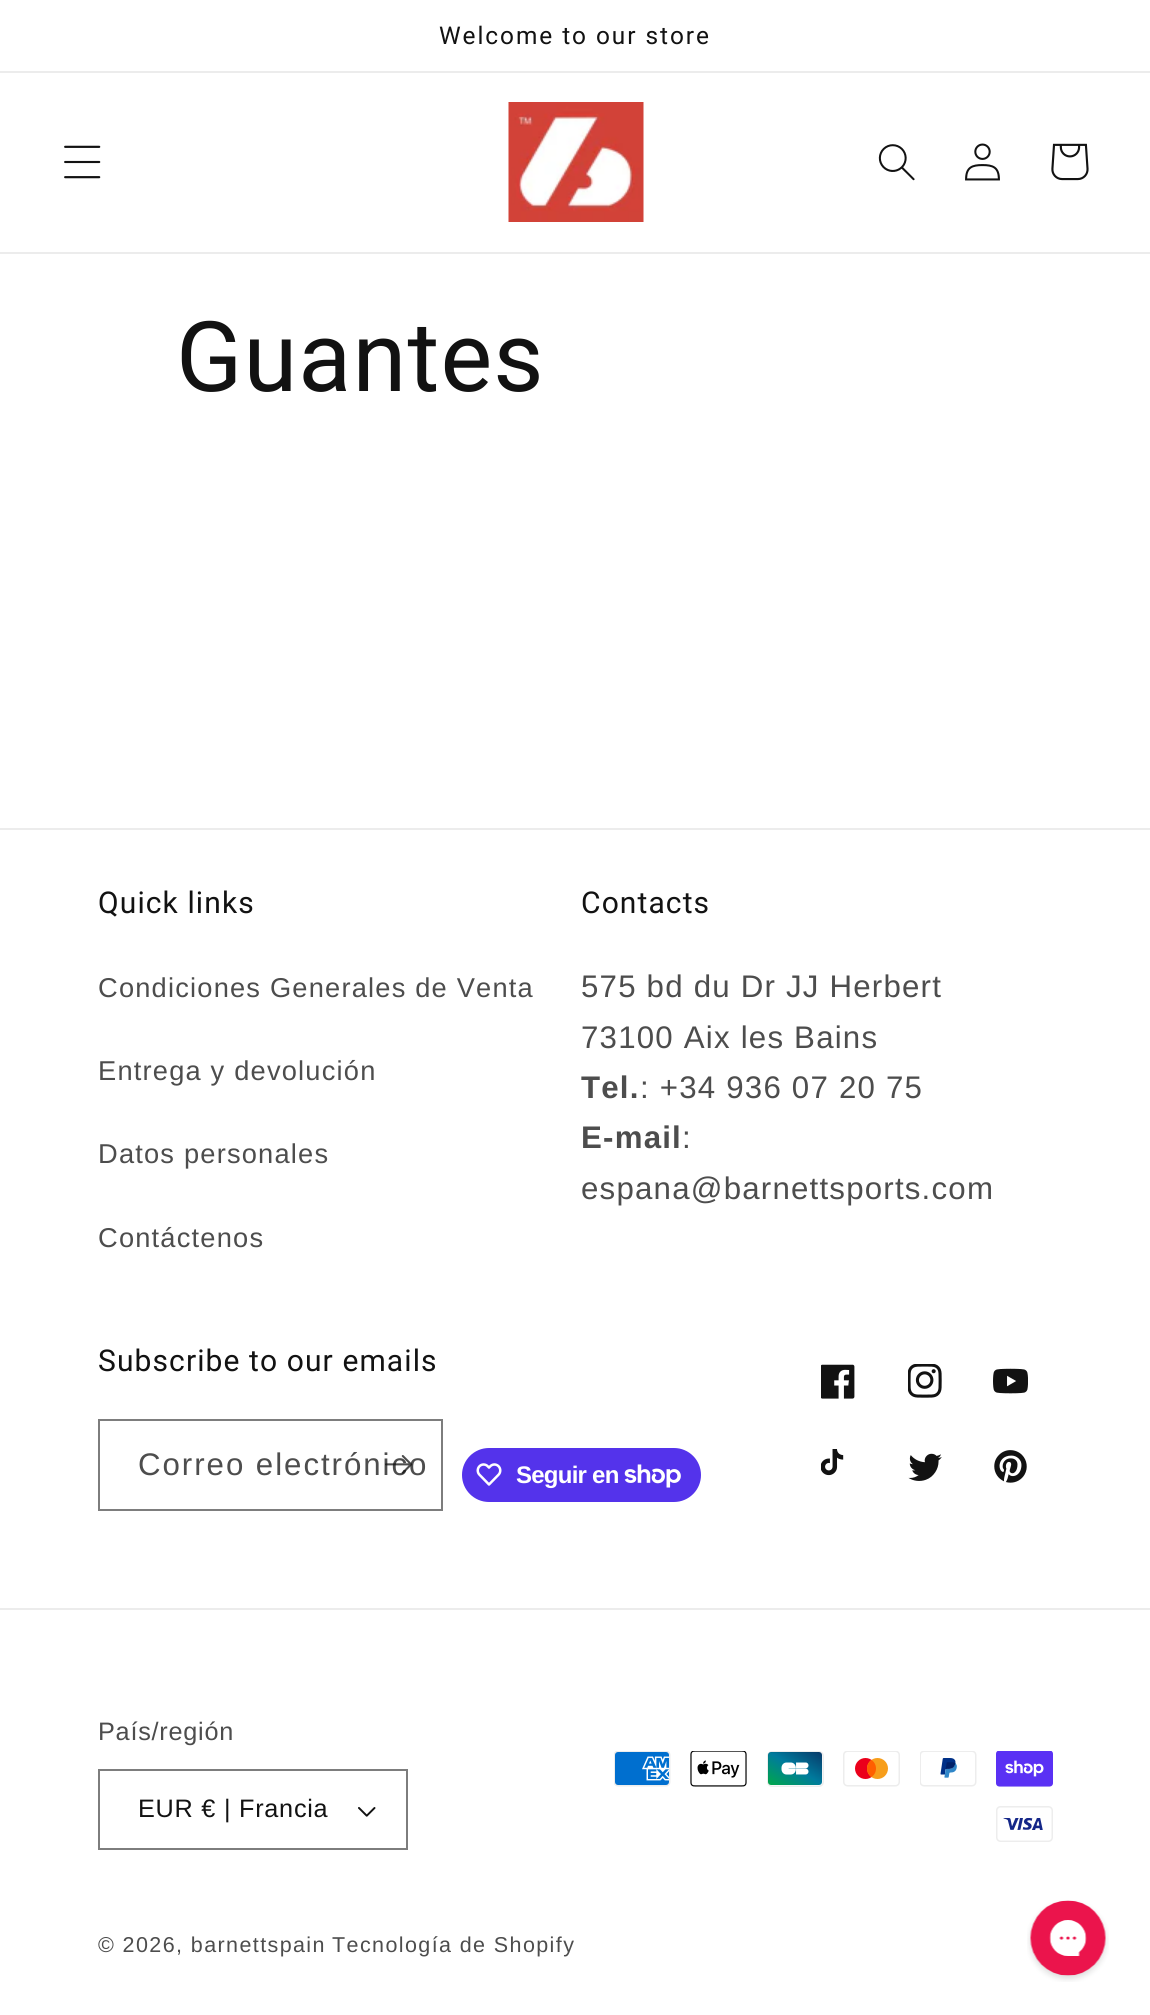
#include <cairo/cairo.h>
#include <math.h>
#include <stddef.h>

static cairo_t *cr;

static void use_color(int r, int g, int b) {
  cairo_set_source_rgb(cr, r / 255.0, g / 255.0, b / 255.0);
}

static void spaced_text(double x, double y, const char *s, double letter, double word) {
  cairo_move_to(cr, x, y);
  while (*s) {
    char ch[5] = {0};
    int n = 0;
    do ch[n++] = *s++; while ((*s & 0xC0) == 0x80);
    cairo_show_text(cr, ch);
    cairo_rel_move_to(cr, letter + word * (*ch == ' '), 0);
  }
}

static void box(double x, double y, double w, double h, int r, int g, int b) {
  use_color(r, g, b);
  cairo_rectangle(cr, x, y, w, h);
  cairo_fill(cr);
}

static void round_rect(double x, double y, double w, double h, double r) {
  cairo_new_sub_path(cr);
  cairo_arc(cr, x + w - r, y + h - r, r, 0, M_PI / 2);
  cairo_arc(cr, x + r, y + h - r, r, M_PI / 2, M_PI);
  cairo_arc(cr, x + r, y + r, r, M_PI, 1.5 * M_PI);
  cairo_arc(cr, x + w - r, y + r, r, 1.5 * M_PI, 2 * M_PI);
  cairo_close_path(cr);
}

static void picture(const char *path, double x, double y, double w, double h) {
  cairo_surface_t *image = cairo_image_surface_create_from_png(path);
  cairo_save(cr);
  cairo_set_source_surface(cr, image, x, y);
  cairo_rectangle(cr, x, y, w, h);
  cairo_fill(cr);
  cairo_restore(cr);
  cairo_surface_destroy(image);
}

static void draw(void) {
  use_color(255, 255, 255);
  cairo_paint(cr);
  box(0, 71, 1150, 2, 236, 236, 236);
  box(0, 252, 1150, 2, 236, 236, 236);
  picture("img_01.png", 64, 145, 37, 34);
  picture("img_02.png", 508, 102, 136, 120);
  picture("img_03.png", 878, 144, 37, 37);
  picture("img_04.png", 965, 143, 35, 38);
  picture("img_05.png", 1051, 143, 38, 38);
  box(0, 828, 1150, 2, 236, 236, 236);
  cairo_rectangle(cr, 99, 1420, 343, 90);
  use_color(125, 125, 125);
  cairo_stroke(cr);
  use_color(84, 51, 235);
  round_rect(462, 1448, 239, 54, 27);
  cairo_fill(cr);
  picture("img_07.png", 476, 1463, 26, 23);
  picture("img_08.png", 624, 1464, 57, 24);
  picture("img_09.png", 821, 1364, 34, 35);
  picture("img_10.png", 908, 1364, 34, 34);
  picture("img_11.png", 993, 1368, 35, 26);
  picture("img_12.png", 821, 1449, 23, 27);
  picture("img_13.png", 908, 1453, 34, 28);
  picture("img_14.png", 994, 1450, 33, 33);
  box(0, 1608, 1150, 2, 236, 236, 236);
  picture("img_15.png", 358, 1807, 18, 10);
  cairo_rectangle(cr, 99, 1770, 308, 79);
  use_color(125, 125, 125);
  cairo_stroke(cr);
  picture("img_16.png", 614, 1751, 57, 36);
  picture("img_17.png", 690, 1751, 57, 36);
  picture("img_18.png", 767, 1751, 57, 36);
  picture("img_19.png", 843, 1751, 57, 36);
  picture("img_20.png", 920, 1751, 57, 36);
  picture("img_21.png", 996, 1751, 57, 36);
  picture("img_22.png", 996, 1806, 57, 36);
  picture("img_23.png", 1027, 1900, 82, 82);
  cairo_select_font_face(cr, "Roboto", CAIRO_FONT_SLANT_NORMAL, CAIRO_FONT_WEIGHT_NORMAL);
  cairo_set_font_size(cr, 24.4);
  use_color(18, 18, 18);
  spaced_text(439, 44, "Welcome to our store", 1.95, 0);
  cairo_set_font_size(cr, 97.5);
  spaced_text(176, 391, "Guantes", 1.1, 0);
  cairo_set_font_size(cr, 30);
  spaced_text(98, 913, "Quick links", 1.1, 0);
  cairo_select_font_face(cr, "Liberation Sans", CAIRO_FONT_SLANT_NORMAL, CAIRO_FONT_WEIGHT_NORMAL);
  cairo_set_font_size(cr, 27.25);
  use_color(77, 77, 77);
  spaced_text(98, 997, "Condiciones Generales de Venta", 1.2, 0);
  spaced_text(98, 1080, "Entrega y devolución", 1.2, 0);
  spaced_text(98, 1163, "Datos personales", 1.2, 0);
  spaced_text(98, 1247, "Contáctenos", 1.2, 0);
  cairo_select_font_face(cr, "Roboto", CAIRO_FONT_SLANT_NORMAL, CAIRO_FONT_WEIGHT_NORMAL);
  cairo_set_font_size(cr, 30);
  use_color(18, 18, 18);
  spaced_text(581, 913, "Contacts", 1.1, 0);
  cairo_select_font_face(cr, "Liberation Sans", CAIRO_FONT_SLANT_NORMAL, CAIRO_FONT_WEIGHT_NORMAL);
  cairo_set_font_size(cr, 31.25);
  use_color(77, 77, 77);
  spaced_text(581, 997, "575 bd du Dr JJ Herbert", 1.2, 0);
  spaced_text(581, 1048, "73100 Aix les Bains", 1.2, 0);
  cairo_select_font_face(cr, "Liberation Sans", CAIRO_FONT_SLANT_NORMAL, CAIRO_FONT_WEIGHT_BOLD);
  spaced_text(581, 1098, "Tel.", 1.2, 0);
  cairo_select_font_face(cr, "Liberation Sans", CAIRO_FONT_SLANT_NORMAL, CAIRO_FONT_WEIGHT_NORMAL);
  spaced_text(640, 1098, ": +34 936 07 20 75", 1.2, 0);
  cairo_select_font_face(cr, "Liberation Sans", CAIRO_FONT_SLANT_NORMAL, CAIRO_FONT_WEIGHT_BOLD);
  spaced_text(581, 1148, "E-mail", 1.2, 0);
  cairo_select_font_face(cr, "Liberation Sans", CAIRO_FONT_SLANT_NORMAL, CAIRO_FONT_WEIGHT_NORMAL);
  spaced_text(682, 1148, ":", 1.2, 0);
  spaced_text(581, 1199, "espana@barnettsports.com", 1.2, 0);
  cairo_select_font_face(cr, "Roboto", CAIRO_FONT_SLANT_NORMAL, CAIRO_FONT_WEIGHT_NORMAL);
  cairo_set_font_size(cr, 30);
  use_color(18, 18, 18);
  spaced_text(98, 1371, "Subscribe to our emails", 1.1, 0);
  cairo_select_font_face(cr, "Liberation Sans", CAIRO_FONT_SLANT_NORMAL, CAIRO_FONT_WEIGHT_NORMAL);
  cairo_set_font_size(cr, 31.25);
  use_color(77, 77, 77);
  spaced_text(138, 1475, "Correo electrónico", 1.95, 0);
  picture("img_06.png", 385, 1455, 28, 19);
  cairo_select_font_face(cr, "Liberation Sans", CAIRO_FONT_SLANT_NORMAL, CAIRO_FONT_WEIGHT_BOLD);
  cairo_set_font_size(cr, 24);
  use_color(255, 255, 255);
  spaced_text(516, 1483, "Seguir en", -0.75, 0);
  cairo_select_font_face(cr, "Liberation Sans", CAIRO_FONT_SLANT_NORMAL, CAIRO_FONT_WEIGHT_NORMAL);
  cairo_set_font_size(cr, 25.25);
  use_color(77, 77, 77);
  spaced_text(98, 1740, "País/región", 0.75, 0);
  use_color(18, 18, 18);
  spaced_text(138, 1817, "EUR € | Francia", 0.75, 0);
  cairo_set_font_size(cr, 21.5);
  use_color(77, 77, 77);
  spaced_text(98, 1952, "© 2026, barnettspain", 1.4, 0);
  spaced_text(332, 1952, "Tecnología de Shopify", 1.4, 0);
}

int main(void) {
  cairo_surface_t *surface = cairo_image_surface_create(CAIRO_FORMAT_RGB24, 1150, 2015);
  cr = cairo_create(surface);
  cairo_font_options_t *options = cairo_font_options_create();
  cairo_font_options_set_hint_metrics(options, CAIRO_HINT_METRICS_OFF);
  cairo_font_options_set_hint_style(options, CAIRO_HINT_STYLE_NONE);
  cairo_set_font_options(cr, options);
  cairo_set_miter_limit(cr, 4);
  draw();
  cairo_surface_write_to_png(surface, "out.png");
  cairo_font_options_destroy(options);
  cairo_destroy(cr);
  cairo_surface_destroy(surface);
  return 0;
}
